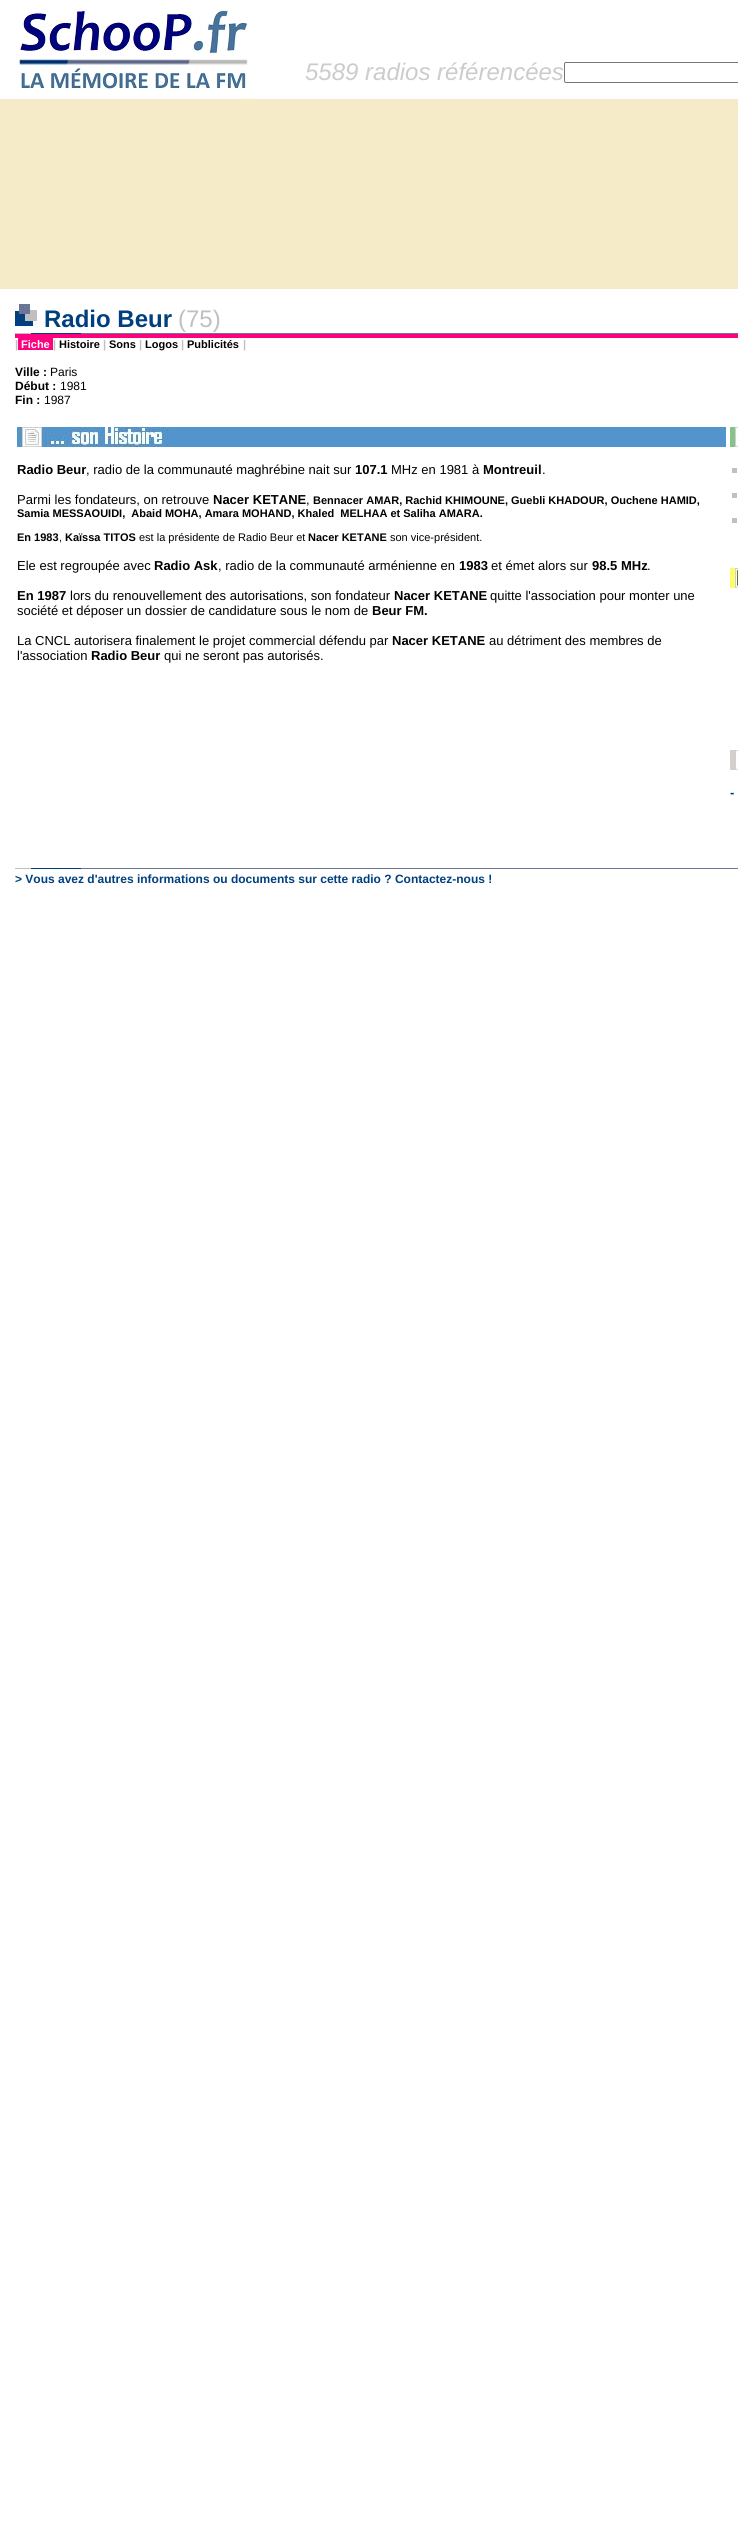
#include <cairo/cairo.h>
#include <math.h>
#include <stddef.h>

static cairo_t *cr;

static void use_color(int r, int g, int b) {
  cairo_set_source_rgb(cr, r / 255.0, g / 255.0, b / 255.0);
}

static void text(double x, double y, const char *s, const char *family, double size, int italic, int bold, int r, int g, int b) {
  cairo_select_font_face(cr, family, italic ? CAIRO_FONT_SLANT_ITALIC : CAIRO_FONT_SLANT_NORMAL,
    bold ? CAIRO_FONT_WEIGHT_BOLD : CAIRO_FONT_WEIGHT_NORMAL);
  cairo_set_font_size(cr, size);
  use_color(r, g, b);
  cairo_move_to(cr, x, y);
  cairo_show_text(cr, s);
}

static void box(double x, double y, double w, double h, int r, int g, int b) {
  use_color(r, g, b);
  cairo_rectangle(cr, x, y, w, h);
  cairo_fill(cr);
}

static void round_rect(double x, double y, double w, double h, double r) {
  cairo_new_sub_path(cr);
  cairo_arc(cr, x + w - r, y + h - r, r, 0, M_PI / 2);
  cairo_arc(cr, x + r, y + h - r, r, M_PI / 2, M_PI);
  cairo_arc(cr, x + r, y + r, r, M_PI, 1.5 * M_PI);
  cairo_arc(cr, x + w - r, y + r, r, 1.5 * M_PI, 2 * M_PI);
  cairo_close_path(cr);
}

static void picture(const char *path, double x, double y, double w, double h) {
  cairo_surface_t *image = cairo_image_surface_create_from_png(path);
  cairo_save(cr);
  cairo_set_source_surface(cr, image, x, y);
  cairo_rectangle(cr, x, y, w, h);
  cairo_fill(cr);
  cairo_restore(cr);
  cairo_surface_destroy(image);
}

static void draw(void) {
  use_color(246, 235, 201);
  cairo_paint(cr);
  box(0, 0, 738, 99, 255, 255, 255);
  picture("img_01.png", 16, 8, 238, 91);
  round_rect(564.5, 62.5, 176, 20, 1.5);
  use_color(118, 118, 118);
  cairo_set_line_width(cr, 1);
  cairo_stroke(cr);
  box(0, 289, 738, 2258, 255, 255, 255);
  picture("img_02.png", 15, 304, 22, 23);
  box(81, 333, 657, 1, 107, 118, 148);
  box(15, 333, 16, 1, 192, 192, 192);
  box(31, 333, 50, 1, 0, 64, 128);
  box(15, 334, 723, 4, 255, 0, 128);
  box(18, 338, 35, 12, 255, 0, 128);
  box(169, 427, 557, 20, 84, 148, 204);
  picture("img_03.png", 17, 427, 152, 20);
  picture("img_04.png", 730, 427, 8, 20);
  box(732, 468, 5, 5, 192, 192, 192);
  box(732, 493, 5, 5, 192, 192, 192);
  box(732, 518, 5, 5, 192, 192, 192);
  picture("img_05.png", 730, 568, 8, 20);
  picture("img_06.png", 730, 750, 8, 20);
  box(81, 868, 657, 1, 107, 118, 148);
  box(15, 868, 16, 1, 192, 192, 192);
  box(31, 868, 50, 1, 0, 64, 128);
  text(305, 80, "5589 radios référencées", "Liberation Sans", 24, 1, 0, 204, 204, 204);
  text(44, 327, "Radio Beur", "Liberation Sans", 24, 0, 1, 0, 64, 128);
  text(178, 327, "(75)", "Liberation Sans", 24, 0, 0, 192, 192, 192);
  text(15, 348, "|", "Liberation Sans", 11, 0, 1, 192, 192, 192);
  text(21, 348, "Fiche", "Liberation Sans", 11, 0, 1, 255, 255, 255);
  text(53, 348, "|", "Liberation Sans", 11, 0, 1, 192, 192, 192);
  text(59, 348, "Histoire", "Liberation Sans", 11, 0, 1, 0, 0, 0);
  text(103, 348, "|", "Liberation Sans", 11, 0, 1, 192, 192, 192);
  text(109, 348, "Sons", "Liberation Sans", 11, 0, 1, 0, 0, 0);
  text(139, 348, "|", "Liberation Sans", 11, 0, 1, 192, 192, 192);
  text(145, 348, "Logos", "Liberation Sans", 11, 0, 1, 0, 0, 0);
  text(181, 348, "|", "Liberation Sans", 11, 0, 1, 192, 192, 192);
  text(187, 348, "Publicités", "Liberation Sans", 11, 0, 1, 0, 0, 0);
  text(243, 348, "|", "Liberation Sans", 11, 0, 1, 192, 192, 192);
  text(15, 376, "Ville :", "Liberation Sans", 12, 0, 1, 0, 0, 0);
  text(50, 376, "Paris", "Liberation Sans", 12, 0, 0, 0, 0, 0);
  text(15, 390, "Début :", "Liberation Sans", 12, 0, 1, 0, 0, 0);
  text(60, 390, "1981", "Liberation Sans", 12, 0, 0, 0, 0, 0);
  text(15, 404, "Fin :", "Liberation Sans", 12, 0, 1, 0, 0, 0);
  text(44, 404, "1987", "Liberation Sans", 12, 0, 0, 0, 0, 0);
  text(17, 474, "Radio Beur", "Liberation Sans", 13, 0, 1, 0, 0, 0);
  text(86, 474, ", radio de la communauté maghrébine nait sur", "Liberation Sans", 13, 0, 0, 0, 0, 0);
  text(355, 474, "107.1", "Liberation Sans", 13, 0, 1, 0, 0, 0);
  text(391, 474, "MHz en 1981 à", "Liberation Sans", 13, 0, 0, 0, 0, 0);
  text(483, 474, "Montreuil", "Liberation Sans", 13, 0, 1, 0, 0, 0);
  text(542, 474, ".", "Liberation Sans", 13, 0, 0, 0, 0, 0);
  text(17, 504, "Parmi les fondateurs, on retrouve", "Liberation Sans", 13, 0, 0, 0, 0, 0);
  text(213, 504, "Nacer KETANE", "Liberation Sans", 13, 0, 1, 0, 0, 0);
  text(306, 504, ",", "Liberation Sans", 13, 0, 0, 0, 0, 0);
  text(313, 504, "Bennacer AMAR, Rachid KHIMOUNE, Guebli KHADOUR, Ouchene HAMID,", "Liberation Sans", 11, 0, 1, 0, 0, 0);
  text(17, 517, "Samia MESSAOUIDI,  Abaid MOHA, Amara MOHAND, Khaled  MELHAA et Saliha AMARA.", "Liberation Sans", 11, 0, 1, 0, 0, 0);
  text(17, 541, "En 1983", "Liberation Sans", 11, 0, 1, 0, 0, 0);
  text(59, 541, ",", "Liberation Sans", 11, 0, 0, 0, 0, 0);
  text(65, 541, "Kaïssa TITOS", "Liberation Sans", 11, 0, 1, 0, 0, 0);
  text(139, 541, "est la présidente de Radio Beur et", "Liberation Sans", 11, 0, 0, 0, 0, 0);
  text(308, 541, "Nacer KETANE", "Liberation Sans", 11, 0, 1, 0, 0, 0);
  text(390, 541, "son vice-président.", "Liberation Sans", 11, 0, 0, 0, 0, 0);
  text(17, 570, "Ele est regroupée avec", "Liberation Sans", 13, 0, 0, 0, 0, 0);
  text(154, 570, "Radio Ask", "Liberation Sans", 13, 0, 1, 0, 0, 0);
  text(218, 570, ", radio de la communauté arménienne en", "Liberation Sans", 13, 0, 0, 0, 0, 0);
  text(459, 570, "1983", "Liberation Sans", 13, 0, 1, 0, 0, 0);
  text(491, 570, "et émet alors sur", "Liberation Sans", 13, 0, 0, 0, 0, 0);
  text(592, 570, "98.5 MHz", "Liberation Sans", 13, 0, 1, 0, 0, 0);
  text(647, 570, ".", "Liberation Sans", 13, 0, 0, 0, 0, 0);
  text(17, 600, "En 1987", "Liberation Sans", 13, 0, 1, 0, 0, 0);
  text(70, 600, "lors du renouvellement des autorisations, son fondateur", "Liberation Sans", 13, 0, 0, 0, 0, 0);
  text(394, 600, "Nacer KETANE", "Liberation Sans", 13, 0, 1, 0, 0, 0);
  text(490, 600, "quitte l'association pour monter une", "Liberation Sans", 13, 0, 0, 0, 0, 0);
  text(17, 615, "société et déposer un dossier de candidature sous le nom de", "Liberation Sans", 13, 0, 0, 0, 0, 0);
  text(372, 615, "Beur FM.", "Liberation Sans", 13, 0, 1, 0, 0, 0);
  text(17, 645, "La CNCL autorisera finalement le projet commercial défendu par", "Liberation Sans", 13, 0, 0, 0, 0, 0);
  text(392, 645, "Nacer KETANE", "Liberation Sans", 13, 0, 1, 0, 0, 0);
  text(489, 645, "au détriment des membres de", "Liberation Sans", 13, 0, 0, 0, 0, 0);
  text(17, 660, "l'association", "Liberation Sans", 13, 0, 0, 0, 0, 0);
  text(91, 660, "Radio Beur", "Liberation Sans", 13, 0, 1, 0, 0, 0);
  text(164, 660, "qui ne seront pas autorisés.", "Liberation Sans", 13, 0, 0, 0, 0, 0);
  text(730, 797, "-", "Liberation Sans", 13, 0, 1, 0, 64, 128);
  text(15, 883, "> Vous avez d'autres informations ou documents sur cette radio ? Contactez-nous !", "Liberation Sans", 12, 0, 1, 0, 64, 128);
}

int main(void) {
  cairo_surface_t *surface = cairo_image_surface_create(CAIRO_FORMAT_RGB24, 738, 2547);
  cr = cairo_create(surface);
  cairo_font_options_t *options = cairo_font_options_create();
  cairo_font_options_set_hint_metrics(options, CAIRO_HINT_METRICS_OFF);
  cairo_font_options_set_hint_style(options, CAIRO_HINT_STYLE_NONE);
  cairo_set_font_options(cr, options);
  cairo_set_miter_limit(cr, 4);
  draw();
  cairo_surface_write_to_png(surface, "out.png");
  cairo_font_options_destroy(options);
  cairo_destroy(cr);
  cairo_surface_destroy(surface);
  return 0;
}
